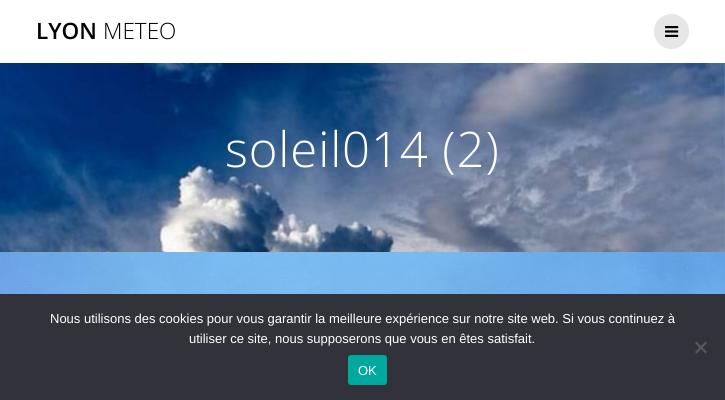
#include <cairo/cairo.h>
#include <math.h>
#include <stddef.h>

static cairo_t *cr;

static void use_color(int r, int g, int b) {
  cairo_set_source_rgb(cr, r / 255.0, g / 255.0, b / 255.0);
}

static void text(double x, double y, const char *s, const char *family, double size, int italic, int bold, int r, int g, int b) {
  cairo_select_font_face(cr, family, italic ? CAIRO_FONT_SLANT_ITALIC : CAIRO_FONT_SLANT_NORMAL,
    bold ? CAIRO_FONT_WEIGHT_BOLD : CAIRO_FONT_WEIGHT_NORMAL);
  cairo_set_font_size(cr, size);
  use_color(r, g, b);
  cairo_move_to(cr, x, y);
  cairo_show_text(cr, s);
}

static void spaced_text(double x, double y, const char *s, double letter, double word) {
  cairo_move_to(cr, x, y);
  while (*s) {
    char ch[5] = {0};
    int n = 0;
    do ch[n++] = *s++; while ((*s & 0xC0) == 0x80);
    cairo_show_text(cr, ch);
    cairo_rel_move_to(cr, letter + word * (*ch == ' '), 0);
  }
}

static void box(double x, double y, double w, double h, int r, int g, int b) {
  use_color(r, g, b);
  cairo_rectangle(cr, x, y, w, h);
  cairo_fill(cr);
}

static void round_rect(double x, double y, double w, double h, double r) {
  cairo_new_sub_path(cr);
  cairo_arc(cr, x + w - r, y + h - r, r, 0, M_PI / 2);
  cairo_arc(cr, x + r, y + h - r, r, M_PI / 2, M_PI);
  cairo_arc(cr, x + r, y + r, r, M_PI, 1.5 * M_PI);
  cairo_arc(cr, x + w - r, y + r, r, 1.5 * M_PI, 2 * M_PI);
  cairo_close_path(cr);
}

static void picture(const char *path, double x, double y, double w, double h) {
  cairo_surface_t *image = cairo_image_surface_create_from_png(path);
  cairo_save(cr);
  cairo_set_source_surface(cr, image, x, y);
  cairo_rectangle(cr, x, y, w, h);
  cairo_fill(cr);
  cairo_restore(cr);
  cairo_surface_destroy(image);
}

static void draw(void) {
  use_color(255, 255, 255);
  cairo_paint(cr);
  picture("img_01.png", 0, 63, 725, 231);
  use_color(230, 230, 230);
  cairo_arc(cr, 671.5, 31.5, 17.5, 0, 2 * M_PI);
  cairo_fill(cr);
  picture("img_02.png", 665, 26, 14, 11);
  picture("img_03.png", 0, 63, 725, 189);
  box(0, 294, 725, 106, 50, 50, 58);
  use_color(89, 89, 93);
  cairo_new_path(cr);
  cairo_move_to(cr, 705.5, 341.5);
  cairo_line_to(cr, 707, 343);
  cairo_line_to(cr, 696.5, 353.5);
  cairo_line_to(cr, 695, 352);
  cairo_close_path(cr);
  cairo_fill(cr);
  cairo_new_path(cr);
  cairo_move_to(cr, 695, 343);
  cairo_line_to(cr, 696.5, 341.5);
  cairo_line_to(cr, 707, 352);
  cairo_line_to(cr, 705.5, 353.5);
  cairo_close_path(cr);
  cairo_fill(cr);
  use_color(0, 169, 157);
  round_rect(348, 355, 39, 30, 3);
  cairo_fill(cr);
  text(36, 39, "LYON", "Open Sans SemiBold", 22.5, 0, 0, 0, 0, 0);
  text(103, 39, "METEO", "Open Sans Light", 22.5, 0, 0, 0, 0, 0);
  cairo_set_font_size(cr, 49);
  use_color(255, 255, 255);
  spaced_text(225, 167, "soleil014 (2)", 0.9, 0);
  text(50, 323, "Nous utilisons des cookies pour vous garantir la meilleure expérience sur notre site web. Si vous continuez à", "Liberation Sans", 13, 0, 0, 255, 255, 255);
  text(189, 343, "utiliser ce site, nous supposerons que vous en êtes satisfait.", "Liberation Sans", 13, 0, 0, 255, 255, 255);
  text(358, 375, "OK", "Liberation Sans", 13, 0, 0, 255, 255, 255);
}

int main(void) {
  cairo_surface_t *surface = cairo_image_surface_create(CAIRO_FORMAT_RGB24, 725, 400);
  cr = cairo_create(surface);
  cairo_font_options_t *options = cairo_font_options_create();
  cairo_font_options_set_hint_metrics(options, CAIRO_HINT_METRICS_OFF);
  cairo_font_options_set_hint_style(options, CAIRO_HINT_STYLE_NONE);
  cairo_set_font_options(cr, options);
  cairo_set_miter_limit(cr, 4);
  draw();
  cairo_surface_write_to_png(surface, "out.png");
  cairo_font_options_destroy(options);
  cairo_destroy(cr);
  cairo_surface_destroy(surface);
  return 0;
}
